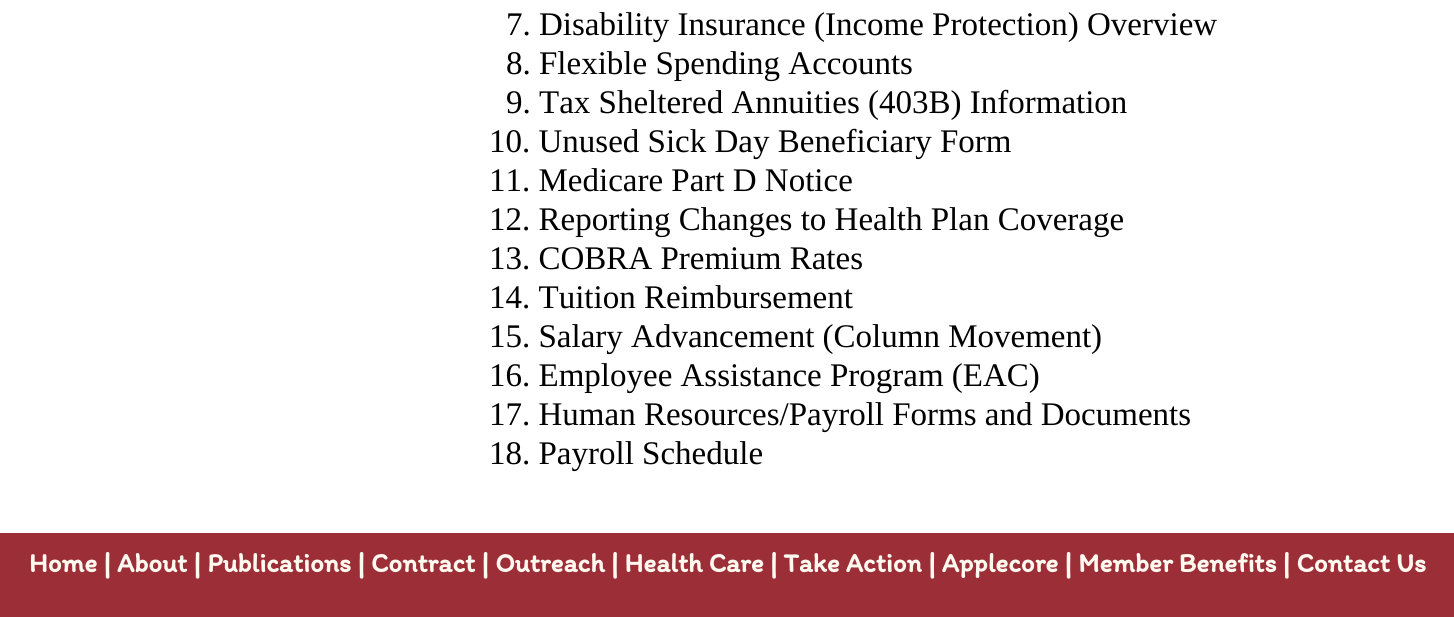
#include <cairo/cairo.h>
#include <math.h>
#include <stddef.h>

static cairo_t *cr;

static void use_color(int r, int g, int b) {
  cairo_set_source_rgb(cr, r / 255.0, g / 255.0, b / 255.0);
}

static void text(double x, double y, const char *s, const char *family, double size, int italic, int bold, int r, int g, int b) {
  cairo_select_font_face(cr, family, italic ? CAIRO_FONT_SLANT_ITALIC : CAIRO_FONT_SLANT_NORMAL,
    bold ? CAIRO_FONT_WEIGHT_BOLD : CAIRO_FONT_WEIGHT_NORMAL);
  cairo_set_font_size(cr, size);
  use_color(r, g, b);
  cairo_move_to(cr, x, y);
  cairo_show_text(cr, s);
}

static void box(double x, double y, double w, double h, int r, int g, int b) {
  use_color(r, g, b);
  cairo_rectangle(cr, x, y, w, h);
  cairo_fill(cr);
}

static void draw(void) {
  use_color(255, 255, 255);
  cairo_paint(cr);
  box(0, 533, 1454, 84, 156, 46, 56);
  text(506, 35, "7. Disability Insurance (Income Protection) Overview", "Liberation Serif", 33, 0, 0, 0, 0, 0);
  text(506, 74, "8. Flexible Spending Accounts", "Liberation Serif", 33, 0, 0, 0, 0, 0);
  text(506, 113, "9. Tax Sheltered Annuities (403B) Information", "Liberation Serif", 33, 0, 0, 0, 0, 0);
  text(489, 152, "10. Unused Sick Day Beneficiary Form", "Liberation Serif", 33, 0, 0, 0, 0, 0);
  text(489, 191, "11. Medicare Part D Notice", "Liberation Serif", 33, 0, 0, 0, 0, 0);
  text(489, 230, "12. Reporting Changes to Health Plan Coverage", "Liberation Serif", 33, 0, 0, 0, 0, 0);
  text(489, 269, "13. COBRA Premium Rates", "Liberation Serif", 33, 0, 0, 0, 0, 0);
  text(489, 308, "14. Tuition Reimbursement", "Liberation Serif", 33, 0, 0, 0, 0, 0);
  text(489, 347, "15. Salary Advancement (Column Movement)", "Liberation Serif", 33, 0, 0, 0, 0, 0);
  text(489, 386, "16. Employee Assistance Program (EAC)", "Liberation Serif", 33, 0, 0, 0, 0, 0);
  text(489, 425, "17. Human Resources/Payroll Forms and Documents", "Liberation Serif", 33, 0, 0, 0, 0, 0);
  text(489, 464, "18. Payroll Schedule", "Liberation Serif", 33, 0, 0, 0, 0, 0);
  text(29, 572, "Home | About | Publications | Contract | Outreach | Health Care | Take Action | Applecore | Member Benefits | Contact Us", "Itim", 27, 0, 1, 255, 249, 240);
}

int main(void) {
  cairo_surface_t *surface = cairo_image_surface_create(CAIRO_FORMAT_RGB24, 1454, 617);
  cr = cairo_create(surface);
  cairo_font_options_t *options = cairo_font_options_create();
  cairo_font_options_set_hint_metrics(options, CAIRO_HINT_METRICS_OFF);
  cairo_font_options_set_hint_style(options, CAIRO_HINT_STYLE_NONE);
  cairo_set_font_options(cr, options);
  cairo_set_miter_limit(cr, 4);
  draw();
  cairo_surface_write_to_png(surface, "out.png");
  cairo_font_options_destroy(options);
  cairo_destroy(cr);
  cairo_surface_destroy(surface);
  return 0;
}
